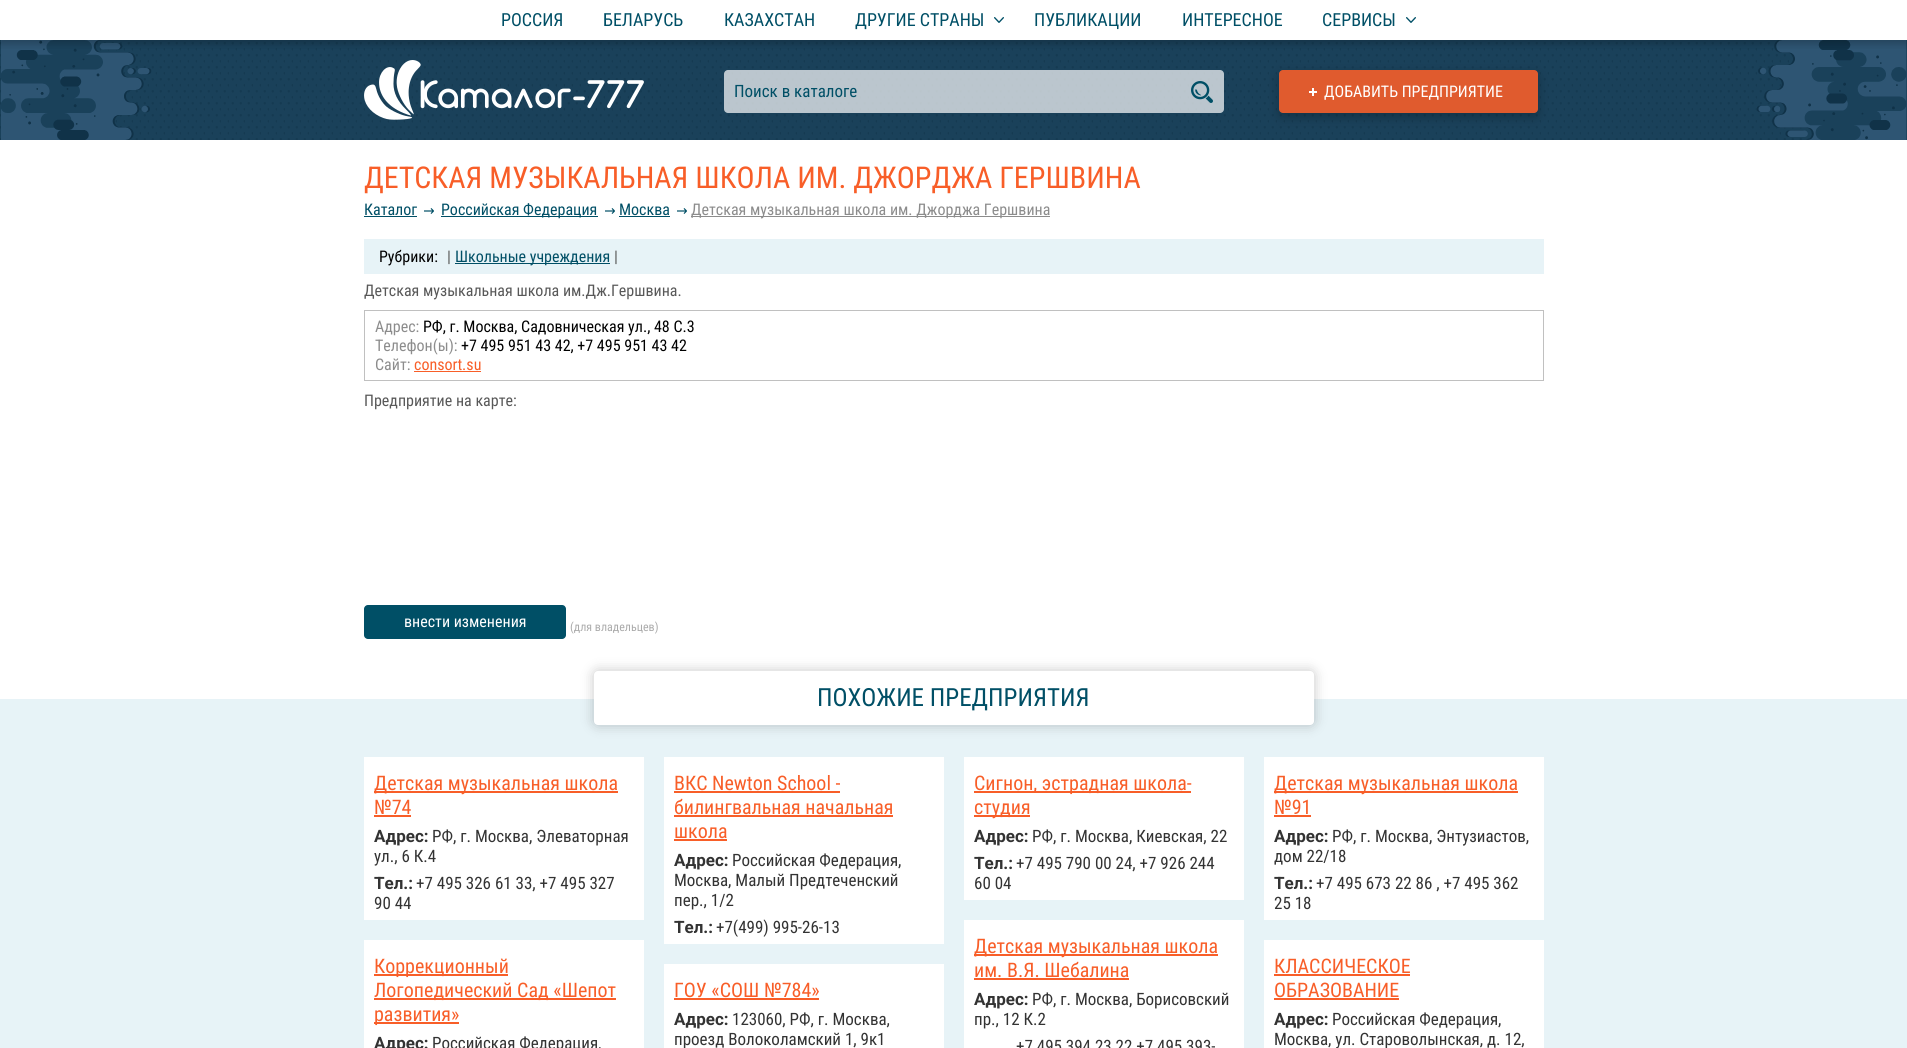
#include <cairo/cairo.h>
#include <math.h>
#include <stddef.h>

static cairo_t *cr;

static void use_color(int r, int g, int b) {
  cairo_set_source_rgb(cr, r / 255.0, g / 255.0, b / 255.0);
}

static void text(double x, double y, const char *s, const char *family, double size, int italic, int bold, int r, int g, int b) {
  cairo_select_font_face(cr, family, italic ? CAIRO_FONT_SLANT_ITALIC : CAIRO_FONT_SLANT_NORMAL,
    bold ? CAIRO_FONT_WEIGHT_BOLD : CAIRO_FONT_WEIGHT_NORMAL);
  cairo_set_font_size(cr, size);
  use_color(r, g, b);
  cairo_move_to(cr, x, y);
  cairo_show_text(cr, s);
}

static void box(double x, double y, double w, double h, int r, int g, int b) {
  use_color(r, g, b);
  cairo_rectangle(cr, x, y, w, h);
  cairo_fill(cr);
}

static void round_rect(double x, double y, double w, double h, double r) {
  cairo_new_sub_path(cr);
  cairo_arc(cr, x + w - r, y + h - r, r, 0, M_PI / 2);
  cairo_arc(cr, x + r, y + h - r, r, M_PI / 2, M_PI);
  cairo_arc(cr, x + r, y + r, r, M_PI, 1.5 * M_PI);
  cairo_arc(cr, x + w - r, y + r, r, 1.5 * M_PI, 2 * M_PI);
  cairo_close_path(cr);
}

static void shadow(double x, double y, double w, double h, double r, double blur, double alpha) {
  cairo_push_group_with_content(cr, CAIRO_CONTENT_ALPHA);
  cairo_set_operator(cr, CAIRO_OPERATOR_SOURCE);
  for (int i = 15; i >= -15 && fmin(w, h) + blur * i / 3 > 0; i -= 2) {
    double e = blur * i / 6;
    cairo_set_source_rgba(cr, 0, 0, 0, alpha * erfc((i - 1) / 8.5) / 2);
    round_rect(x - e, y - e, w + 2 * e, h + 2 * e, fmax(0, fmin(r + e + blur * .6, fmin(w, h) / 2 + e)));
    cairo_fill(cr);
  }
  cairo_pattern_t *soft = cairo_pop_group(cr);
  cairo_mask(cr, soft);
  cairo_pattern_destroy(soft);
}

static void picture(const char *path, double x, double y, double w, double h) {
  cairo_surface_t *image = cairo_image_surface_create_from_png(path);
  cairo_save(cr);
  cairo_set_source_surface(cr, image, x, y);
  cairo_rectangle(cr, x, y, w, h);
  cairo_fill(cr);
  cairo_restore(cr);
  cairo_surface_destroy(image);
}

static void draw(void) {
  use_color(255, 255, 255);
  cairo_paint(cr);
  box(0, 40, 1907, 100, 26, 65, 90);
  picture("img_02.png", 0, 42, 1812, 98);
  picture("img_03.png", 1, 40, 151, 100);
  picture("img_04.png", 1757, 40, 150, 100);
  cairo_save(cr);
  cairo_rectangle(cr, 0, 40, 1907, 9);
  cairo_clip(cr);
  use_color(0, 0, 0);
  shadow(0, 4, 1907, 40, 0, 4, 0.2);
  cairo_restore(cr);
  picture("img_01.png", 994, 17, 10, 6);
  picture("img_01.png", 1406, 17, 10, 6);
  picture("img_05.png", 364, 60, 280, 60);
  cairo_set_source_rgba(cr, 1, 1, 1, 0.7);
  round_rect(724, 70, 500, 43, 4);
  cairo_fill(cr);
  picture("img_06.png", 1191, 81, 22, 22);
  use_color(0, 0, 0);
  shadow(1278, 73, 261, 45, 5, 5, 0.2);
  use_color(224, 91, 46);
  round_rect(1279, 70, 259, 43, 4);
  cairo_fill(cr);
  picture("img_07.png", 1309, 88, 8, 8);
  picture("img_08.png", 424, 208, 10, 6);
  box(364, 216, 53, 1, 0, 79, 102);
  picture("img_08.png", 605, 208, 10, 6);
  box(441, 216, 157, 1, 0, 79, 102);
  picture("img_08.png", 677, 208, 10, 6);
  box(619, 216, 51, 1, 0, 79, 102);
  box(691, 216, 359, 1, 140, 140, 140);
  box(364, 239, 1180, 35, 231, 243, 247);
  box(455, 263, 155, 1, 0, 79, 102);
  cairo_rectangle(cr, 364.5, 310.5, 1179, 70);
  use_color(192, 192, 192);
  cairo_set_line_width(cr, 1);
  cairo_stroke(cr);
  box(414, 371, 67, 1, 248, 94, 40);
  use_color(0, 79, 102);
  round_rect(364, 605, 202, 34, 4);
  cairo_fill(cr);
  box(0, 699, 1907, 349, 231, 243, 247);
  use_color(0, 0, 0);
  shadow(593, 670, 722, 56, 5, 6, 0.2);
  use_color(255, 255, 255);
  round_rect(594, 671, 720, 54, 4);
  cairo_fill(cr);
  box(364, 757, 280, 163, 255, 255, 255);
  box(374, 791, 244, 2, 248, 94, 40);
  box(374, 815, 37, 2, 248, 94, 40);
  box(664, 757, 280, 187, 255, 255, 255);
  box(674, 791, 166, 2, 248, 94, 40);
  box(674, 815, 219, 2, 248, 94, 40);
  box(674, 839, 53, 2, 248, 94, 40);
  box(964, 757, 280, 143, 255, 255, 255);
  box(974, 791, 217, 2, 248, 94, 40);
  box(974, 815, 56, 2, 248, 94, 40);
  box(1264, 757, 280, 163, 255, 255, 255);
  box(1274, 791, 244, 2, 248, 94, 40);
  box(1274, 815, 37, 2, 248, 94, 40);
  box(364, 940, 280, 108, 255, 255, 255);
  box(374, 974, 134, 2, 248, 94, 40);
  box(374, 998, 242, 2, 248, 94, 40);
  box(374, 1022, 85, 2, 248, 94, 40);
  box(664, 964, 280, 84, 255, 255, 255);
  box(674, 998, 145, 2, 248, 94, 40);
  box(964, 920, 280, 128, 255, 255, 255);
  box(974, 954, 244, 2, 248, 94, 40);
  box(974, 978, 155, 2, 248, 94, 40);
  box(1264, 940, 280, 108, 255, 255, 255);
  box(1274, 974, 136, 2, 248, 94, 40);
  box(1274, 998, 125, 2, 248, 94, 40);
  text(501, 26, "РОССИЯ", "Roboto Condensed", 18, 0, 0, 0, 79, 102);
  text(603, 26, "БЕЛАРУСЬ", "Roboto Condensed", 18, 0, 0, 0, 79, 102);
  text(724, 26, "КАЗАХСТАН", "Roboto Condensed", 18, 0, 0, 0, 79, 102);
  text(855, 26, "ДРУГИЕ СТРАНЫ", "Roboto Condensed", 18, 0, 0, 0, 79, 102);
  text(1034, 26, "ПУБЛИКАЦИИ", "Roboto Condensed", 18, 0, 0, 0, 79, 102);
  text(1182, 26, "ИНТЕРЕСНОЕ", "Roboto Condensed", 18, 0, 0, 0, 79, 102);
  text(1322, 26, "СЕРВИСЫ", "Roboto Condensed", 18, 0, 0, 0, 79, 102);
  text(734, 97, "Поиск в каталоге", "Roboto Condensed", 17, 0, 0, 0, 79, 102);
  text(1324, 97, "ДОБАВИТЬ ПРЕДПРИЯТИЕ", "Roboto Condensed", 16, 0, 0, 255, 255, 255);
  text(364, 188, "ДЕТСКАЯ МУЗЫКАЛЬНАЯ ШКОЛА ИМ. ДЖОРДЖА ГЕРШВИНА", "Roboto Condensed", 30, 0, 0, 248, 94, 40);
  text(364, 215, "Каталог", "Roboto Condensed", 16, 0, 0, 0, 79, 102);
  text(441, 215, "Российcкая Федерация", "Roboto Condensed", 16, 0, 0, 0, 79, 102);
  text(619, 215, "Москва", "Roboto Condensed", 16, 0, 0, 0, 79, 102);
  text(691, 215, "Детская музыкальная школа им. Джорджа Гершвина", "Roboto Condensed", 16, 0, 0, 140, 140, 140);
  text(379, 262, "Рубрики:", "Roboto Condensed", 16, 0, 0, 0, 0, 0);
  text(447, 262, "|", "Roboto Condensed", 16, 0, 0, 88, 88, 88);
  text(455, 262, "Школьные учреждения", "Roboto Condensed", 16, 0, 0, 0, 79, 102);
  text(614, 262, "|", "Roboto Condensed", 16, 0, 0, 88, 88, 88);
  text(364, 296, "Детская музыкальная школа им.Дж.Гершвина.", "Roboto Condensed", 16, 0, 0, 88, 88, 88);
  text(375, 332, "Адрес:", "Roboto Condensed", 16, 0, 0, 140, 140, 140);
  text(423, 332, "РФ, г. Москва, Садовническая ул., 48 С.3", "Roboto Condensed", 16, 0, 0, 0, 0, 0);
  text(375, 351, "Телефон(ы):", "Roboto Condensed", 16, 0, 0, 140, 140, 140);
  text(461, 351, "+7 495 951 43 42, +7 495 951 43 42", "Roboto Condensed", 16, 0, 0, 0, 0, 0);
  text(375, 370, "Сайт:", "Roboto Condensed", 16, 0, 0, 140, 140, 140);
  text(414, 370, "consort.su", "Roboto Condensed", 16, 0, 0, 248, 94, 40);
  text(364, 406, "Предприятие на карте:", "Roboto Condensed", 16, 0, 0, 88, 88, 88);
  text(404, 627, "внести изменения", "Roboto Condensed", 16, 0, 0, 255, 255, 255);
  text(570, 631, "(для владельцев)", "Roboto Condensed", 12, 0, 0, 171, 171, 171);
  text(817, 706, "ПОХОЖИЕ ПРЕДПРИЯТИЯ", "Roboto Condensed", 25, 0, 0, 0, 79, 102);
  text(374, 790, "Детская музыкальная школа", "Roboto Condensed", 20, 0, 0, 248, 94, 40);
  text(374, 814, "№74", "Roboto Condensed", 20, 0, 0, 248, 94, 40);
  text(374, 842, "Адрес:", "Roboto", 17, 0, 1, 51, 51, 51);
  text(432, 842, "РФ, г. Москва, Элеваторная", "Roboto Condensed", 17, 0, 0, 51, 51, 51);
  text(374, 862, "ул., 6 К.4", "Roboto Condensed", 17, 0, 0, 51, 51, 51);
  text(374, 889, "Тел.:", "Roboto", 17, 0, 1, 51, 51, 51);
  text(416, 889, "+7 495 326 61 33, +7 495 327", "Roboto Condensed", 17, 0, 0, 51, 51, 51);
  text(374, 909, "90 44", "Roboto Condensed", 17, 0, 0, 51, 51, 51);
  text(674, 790, "ВКС Newton School -", "Roboto Condensed", 20, 0, 0, 248, 94, 40);
  text(674, 814, "билингвальная начальная", "Roboto Condensed", 20, 0, 0, 248, 94, 40);
  text(674, 838, "школа", "Roboto Condensed", 20, 0, 0, 248, 94, 40);
  text(674, 866, "Адрес:", "Roboto", 17, 0, 1, 51, 51, 51);
  text(732, 866, "Российcкая Федерация,", "Roboto Condensed", 17, 0, 0, 51, 51, 51);
  text(674, 886, "Москва, Малый Предтеченский", "Roboto Condensed", 17, 0, 0, 51, 51, 51);
  text(674, 906, "пер., 1/2", "Roboto Condensed", 17, 0, 0, 51, 51, 51);
  text(674, 933, "Тел.:", "Roboto", 17, 0, 1, 51, 51, 51);
  text(716, 933, "+7(499) 995-26-13", "Roboto Condensed", 17, 0, 0, 51, 51, 51);
  text(974, 790, "Сигнон, эстрадная школа-", "Roboto Condensed", 20, 0, 0, 248, 94, 40);
  text(974, 814, "студия", "Roboto Condensed", 20, 0, 0, 248, 94, 40);
  text(974, 842, "Адрес:", "Roboto", 17, 0, 1, 51, 51, 51);
  text(1032, 842, "РФ, г. Москва, Киевская, 22", "Roboto Condensed", 17, 0, 0, 51, 51, 51);
  text(974, 869, "Тел.:", "Roboto", 17, 0, 1, 51, 51, 51);
  text(1016, 869, "+7 495 790 00 24, +7 926 244", "Roboto Condensed", 17, 0, 0, 51, 51, 51);
  text(974, 889, "60 04", "Roboto Condensed", 17, 0, 0, 51, 51, 51);
  text(1274, 790, "Детская музыкальная школа", "Roboto Condensed", 20, 0, 0, 248, 94, 40);
  text(1274, 814, "№91", "Roboto Condensed", 20, 0, 0, 248, 94, 40);
  text(1274, 842, "Адрес:", "Roboto", 17, 0, 1, 51, 51, 51);
  text(1332, 842, "РФ, г. Москва, Энтузиастов,", "Roboto Condensed", 17, 0, 0, 51, 51, 51);
  text(1274, 862, "дом 22/18", "Roboto Condensed", 17, 0, 0, 51, 51, 51);
  text(1274, 889, "Тел.:", "Roboto", 17, 0, 1, 51, 51, 51);
  text(1316, 889, "+7 495 673 22 86 , +7 495 362", "Roboto Condensed", 17, 0, 0, 51, 51, 51);
  text(1274, 909, "25 18", "Roboto Condensed", 17, 0, 0, 51, 51, 51);
  text(374, 973, "Коррекционный", "Roboto Condensed", 20, 0, 0, 248, 94, 40);
  text(374, 997, "Логопедический Сад «Шепот", "Roboto Condensed", 20, 0, 0, 248, 94, 40);
  text(374, 1021, "развития»", "Roboto Condensed", 20, 0, 0, 248, 94, 40);
  text(374, 1049, "Адрес:", "Roboto", 17, 0, 1, 51, 51, 51);
  text(432, 1049, "Российcкая Федерация,", "Roboto Condensed", 17, 0, 0, 51, 51, 51);
  text(674, 997, "ГОУ «СОШ №784»", "Roboto Condensed", 20, 0, 0, 248, 94, 40);
  text(674, 1025, "Адрес:", "Roboto", 17, 0, 1, 51, 51, 51);
  text(732, 1025, "123060, РФ, г. Москва,", "Roboto Condensed", 17, 0, 0, 51, 51, 51);
  text(674, 1045, "проезд Волоколамский 1, 9к1", "Roboto Condensed", 17, 0, 0, 51, 51, 51);
  text(974, 953, "Детская музыкальная школа", "Roboto Condensed", 20, 0, 0, 248, 94, 40);
  text(974, 977, "им. В.Я. Шебалина", "Roboto Condensed", 20, 0, 0, 248, 94, 40);
  text(974, 1005, "Адрес:", "Roboto", 17, 0, 1, 51, 51, 51);
  text(1032, 1005, "РФ, г. Москва, Борисовский", "Roboto Condensed", 17, 0, 0, 51, 51, 51);
  text(974, 1025, "пр., 12 К.2", "Roboto Condensed", 17, 0, 0, 51, 51, 51);
  text(1016, 1052, "+7 495 394 23 22 +7 495 393-", "Roboto Condensed", 17, 0, 0, 51, 51, 51);
  text(1274, 973, "КЛАССИЧЕСКОЕ", "Roboto Condensed", 20, 0, 0, 248, 94, 40);
  text(1274, 997, "ОБРАЗОВАНИЕ", "Roboto Condensed", 20, 0, 0, 248, 94, 40);
  text(1274, 1025, "Адрес:", "Roboto", 17, 0, 1, 51, 51, 51);
  text(1332, 1025, "Российcкая Федерация,", "Roboto Condensed", 17, 0, 0, 51, 51, 51);
  text(1274, 1045, "Москва, ул. Староволынская, д. 12,", "Roboto Condensed", 17, 0, 0, 51, 51, 51);
}

int main(void) {
  cairo_surface_t *surface = cairo_image_surface_create(CAIRO_FORMAT_RGB24, 1907, 1048);
  cr = cairo_create(surface);
  cairo_font_options_t *options = cairo_font_options_create();
  cairo_font_options_set_hint_metrics(options, CAIRO_HINT_METRICS_OFF);
  cairo_font_options_set_hint_style(options, CAIRO_HINT_STYLE_NONE);
  cairo_set_font_options(cr, options);
  cairo_set_miter_limit(cr, 4);
  draw();
  cairo_surface_write_to_png(surface, "out.png");
  cairo_font_options_destroy(options);
  cairo_destroy(cr);
  cairo_surface_destroy(surface);
  return 0;
}
